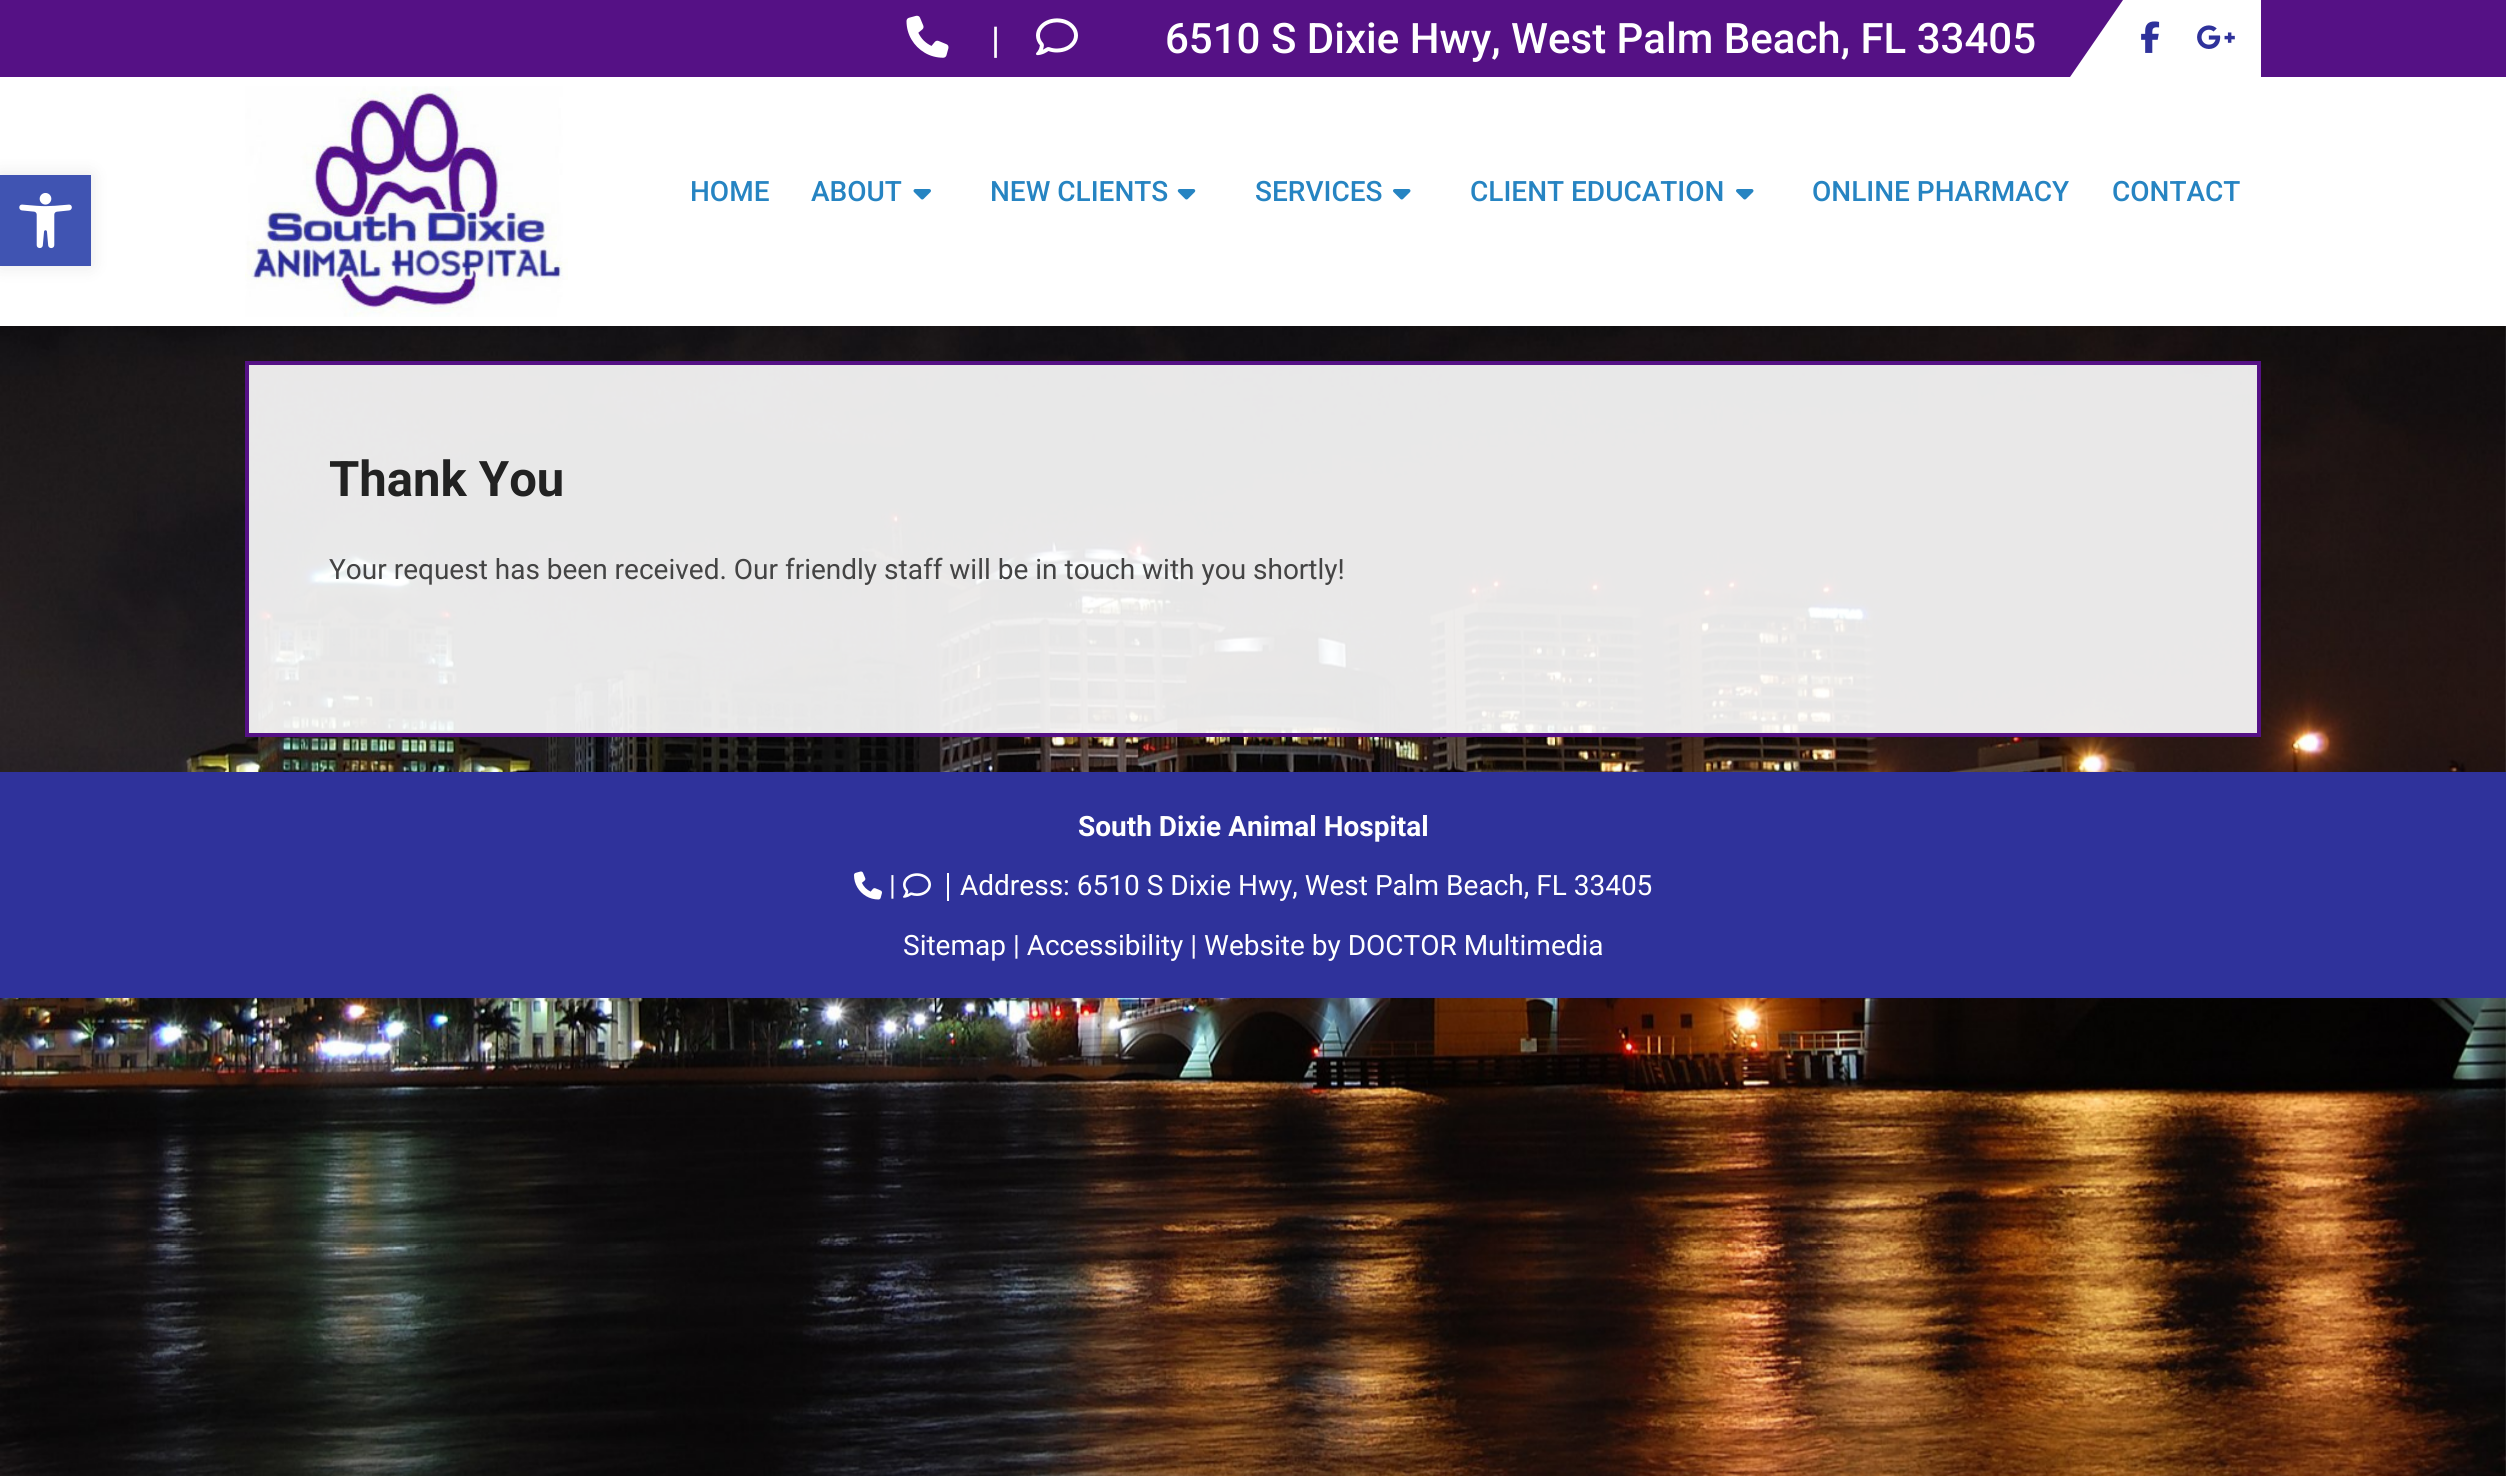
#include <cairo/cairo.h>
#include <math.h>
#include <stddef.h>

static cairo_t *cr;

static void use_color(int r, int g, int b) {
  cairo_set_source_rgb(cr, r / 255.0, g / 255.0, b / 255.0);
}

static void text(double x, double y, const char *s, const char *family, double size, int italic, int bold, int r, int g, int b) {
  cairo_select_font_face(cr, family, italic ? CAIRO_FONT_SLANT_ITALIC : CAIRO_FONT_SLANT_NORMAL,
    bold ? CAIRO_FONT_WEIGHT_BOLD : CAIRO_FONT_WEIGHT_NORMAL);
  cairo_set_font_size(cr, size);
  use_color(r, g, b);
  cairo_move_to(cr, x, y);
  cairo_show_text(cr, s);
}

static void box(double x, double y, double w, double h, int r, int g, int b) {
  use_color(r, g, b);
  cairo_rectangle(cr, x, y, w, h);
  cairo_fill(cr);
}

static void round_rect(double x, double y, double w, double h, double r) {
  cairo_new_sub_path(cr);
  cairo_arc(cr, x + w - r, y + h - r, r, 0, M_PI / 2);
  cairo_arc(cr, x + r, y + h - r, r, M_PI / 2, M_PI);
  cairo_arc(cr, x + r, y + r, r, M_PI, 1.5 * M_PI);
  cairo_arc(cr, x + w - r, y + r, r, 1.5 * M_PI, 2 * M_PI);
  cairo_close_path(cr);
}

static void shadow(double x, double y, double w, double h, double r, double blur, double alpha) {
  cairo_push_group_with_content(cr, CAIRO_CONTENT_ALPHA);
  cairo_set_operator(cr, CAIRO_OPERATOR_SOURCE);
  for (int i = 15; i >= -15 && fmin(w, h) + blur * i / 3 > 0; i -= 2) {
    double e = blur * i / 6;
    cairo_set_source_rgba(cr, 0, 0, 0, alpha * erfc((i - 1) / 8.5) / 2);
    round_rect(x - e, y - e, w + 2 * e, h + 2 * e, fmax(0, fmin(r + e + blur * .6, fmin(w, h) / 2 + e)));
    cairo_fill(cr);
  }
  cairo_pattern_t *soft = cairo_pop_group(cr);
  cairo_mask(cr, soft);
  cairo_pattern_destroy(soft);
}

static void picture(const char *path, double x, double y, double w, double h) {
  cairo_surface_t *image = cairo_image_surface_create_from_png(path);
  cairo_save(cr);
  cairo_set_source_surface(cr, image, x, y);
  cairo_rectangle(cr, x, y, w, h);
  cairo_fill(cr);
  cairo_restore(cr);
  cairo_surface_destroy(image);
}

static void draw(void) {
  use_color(255, 255, 255);
  cairo_paint(cr);
  picture("img_01.png", 0, 326, 2506, 1150);
  use_color(0, 0, 0);
  shadow(0, 175, 91, 91, 0, 9, 0.1);
  box(0, 175, 91, 91, 64, 84, 178);
  picture("img_02.png", 19, 193, 53, 56);
  box(0, 0, 2506, 77, 85, 17, 133);
  picture("img_03.png", 906, 15, 43, 43);
  picture("img_04.png", 1036, 18, 42, 38);
  box(2123, 0, 138, 77, 255, 255, 255);
  cairo_new_path(cr);
  cairo_move_to(cr, 2123, 0);
  cairo_line_to(cr, 2123, 77);
  cairo_line_to(cr, 2070, 77);
  cairo_close_path(cr);
  cairo_fill(cr);
  picture("img_05.png", 2141, 21, 19, 32);
  picture("img_06.png", 2197, 25, 38, 24);
  picture("img_07.png", 245, 86, 323, 231);
  picture("img_08.png", 913, 189, 18, 11);
  picture("img_09.png", 1177, 189, 19, 11);
  picture("img_10.png", 1393, 189, 18, 11);
  picture("img_10.png", 1736, 189, 18, 11);
  cairo_set_source_rgba(cr, 1, 1, 1, 0.9);
  cairo_rectangle(cr, 247, 363, 2012, 372);
  cairo_fill_preserve(cr);
  use_color(85, 17, 133);
  cairo_set_line_width(cr, 4);
  cairo_stroke(cr);
  box(0, 772, 2506, 226, 47, 50, 155);
  picture("img_11.png", 854, 871, 28, 29);
  picture("img_12.png", 903, 873, 28, 25);
  box(947, 873, 2, 28, 255, 255, 255);
  text(991, 53, "|", "Roboto", 37, 0, 0, 255, 255, 255);
  text(1165, 53, "6510 S Dixie Hwy, West Palm Beach, FL 33405", "Roboto Medium", 42, 0, 0, 255, 255, 255);
  text(690, 201, "HOME", "Roboto Medium", 28, 0, 0, 38, 132, 194);
  text(811, 201, "ABOUT", "Roboto Medium", 28, 0, 0, 38, 132, 194);
  text(990, 201, "NEW CLIENTS", "Roboto Medium", 28, 0, 0, 38, 132, 194);
  text(1255, 201, "SERVICES", "Roboto Medium", 28, 0, 0, 38, 132, 194);
  text(1470, 201, "CLIENT EDUCATION", "Roboto Medium", 28, 0, 0, 38, 132, 194);
  text(1812, 201, "ONLINE PHARMACY", "Roboto Medium", 28, 0, 0, 38, 132, 194);
  text(2112, 201, "CONTACT", "Roboto Medium", 28, 0, 0, 38, 132, 194);
  text(329, 496, "Thank You", "Roboto", 49, 0, 1, 34, 34, 34);
  text(329, 579, "Your request has been received. Our friendly staff will be in touch with you shortly!", "Roboto", 28, 0, 0, 68, 68, 68);
  text(1078, 836, "South Dixie Animal Hospital", "Roboto", 28, 0, 1, 255, 255, 255);
  text(889, 895, "|", "Roboto", 28, 0, 0, 255, 255, 255);
  text(960, 895, "Address: 6510 S Dixie Hwy, West Palm Beach, FL 33405", "Roboto", 28, 0, 0, 255, 255, 255);
  text(903, 955, "Sitemap | Accessibility | Website by DOCTOR Multimedia", "Roboto", 28, 0, 0, 255, 255, 255);
}

int main(void) {
  cairo_surface_t *surface = cairo_image_surface_create(CAIRO_FORMAT_RGB24, 2506, 1476);
  cr = cairo_create(surface);
  cairo_font_options_t *options = cairo_font_options_create();
  cairo_font_options_set_hint_metrics(options, CAIRO_HINT_METRICS_OFF);
  cairo_font_options_set_hint_style(options, CAIRO_HINT_STYLE_NONE);
  cairo_set_font_options(cr, options);
  cairo_set_miter_limit(cr, 4);
  draw();
  cairo_surface_write_to_png(surface, "out.png");
  cairo_font_options_destroy(options);
  cairo_destroy(cr);
  cairo_surface_destroy(surface);
  return 0;
}
